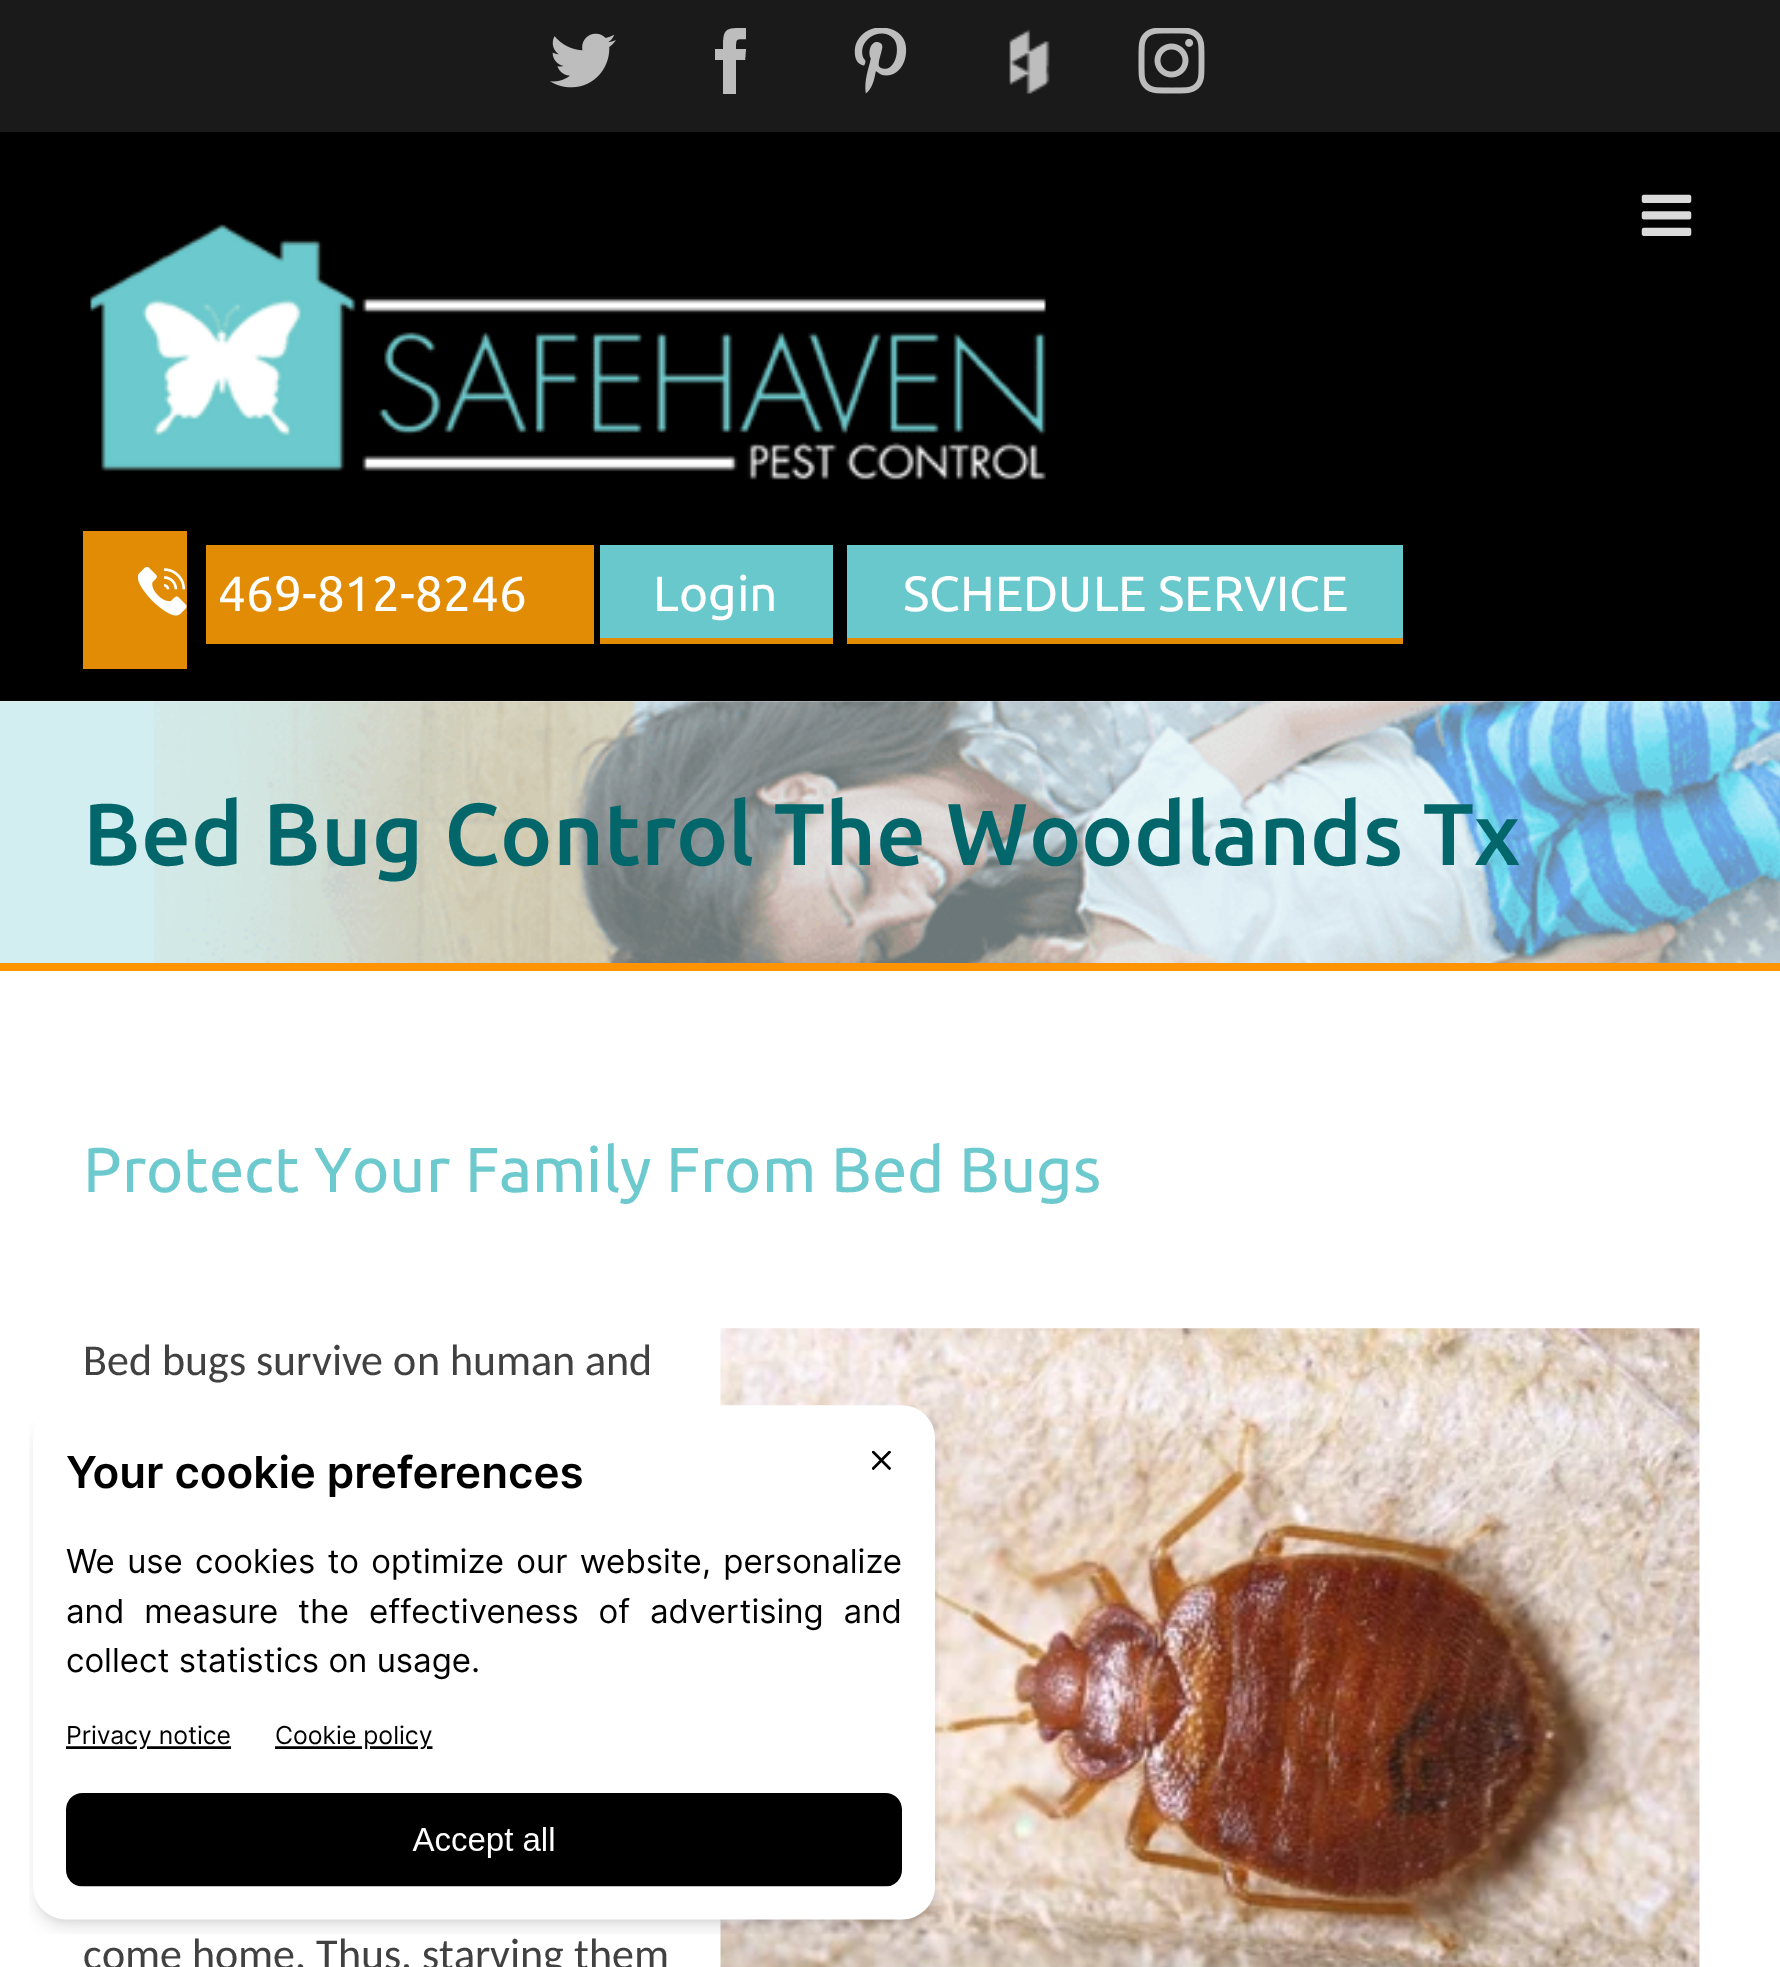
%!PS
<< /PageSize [1780 1967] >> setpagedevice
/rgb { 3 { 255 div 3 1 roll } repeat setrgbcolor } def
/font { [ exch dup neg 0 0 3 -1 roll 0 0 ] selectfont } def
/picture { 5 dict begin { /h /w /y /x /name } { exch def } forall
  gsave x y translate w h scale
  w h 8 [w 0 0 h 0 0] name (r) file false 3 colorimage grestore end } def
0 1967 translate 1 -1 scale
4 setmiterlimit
255 255 255 rgb
0 0 1780 1967 rectfill
26 26 26 rgb
0 0 1780 132 rectfill
(img/1.rgb) 550 33 66 55 picture
190 189 189 rgb
736 94 moveto 723 94 lineto 723 60 lineto 715 60 lineto 715 49 lineto 723 49 lineto 723 28 725 28 746 28 curveto 746 39 lineto 735 39 736 39 736 49 curveto 746 49 lineto 745 60 lineto 736 60 lineto closepath fill
(img/2.rgb) 854 28 53 66 picture
(img/3.rgb) 1009 29 41 65 picture
(img/4.rgb) 1138 28 67 66 picture
0 0 0 rgb
0 132 1780 569 rectfill
(img/5.rgb) 1641 194 51 42 picture
(img/6.rgb) 90 224 956 256 picture
226 140 5 rgb
83 531 104 138 rectfill
206 545 388 99 rectfill
(img/7.rgb) 138 567 49 49 picture
[
  [600 545 233 93 105 200 204]
  [600 638 233 6 226 140 5]
  [847 545 556 93 105 200 204]
  [847 638 556 6 226 140 5]
] { aload pop rgb rectfill } forall
(img/8.rgb) 0 701 1780 262 picture
255 148 0 rgb
0 963 1780 8 rectfill
(img/9.rgb) 720 1328 980 639 picture
(img/10.rgb) 29 1405 910 529 picture
/Ubuntu-Regular 49.5 font
255 255 255 rgb
[
  [(469-812-8246) 218 611]
  [(Login) 653 611]
  [(SCHEDULE SERVICE) 903 611]
] { aload pop moveto show } forall
/Ubuntu-Medium 87.75 font
3 102 106 rgb
83 865 moveto (Bed Bug Control) show
774 865 moveto (The Woodlands Tx) show
/Ubuntu-Regular 63.4 font
108 201 205 rgb
83 1192 moveto (Protect Your Family From Bed Bugs) show
/Carlito-Regular 44 font
65 65 65 rgb
83 1375 moveto (Bed bugs survive on human and) show
83 1969 moveto (come home. Thus, starving them) show
showpage
